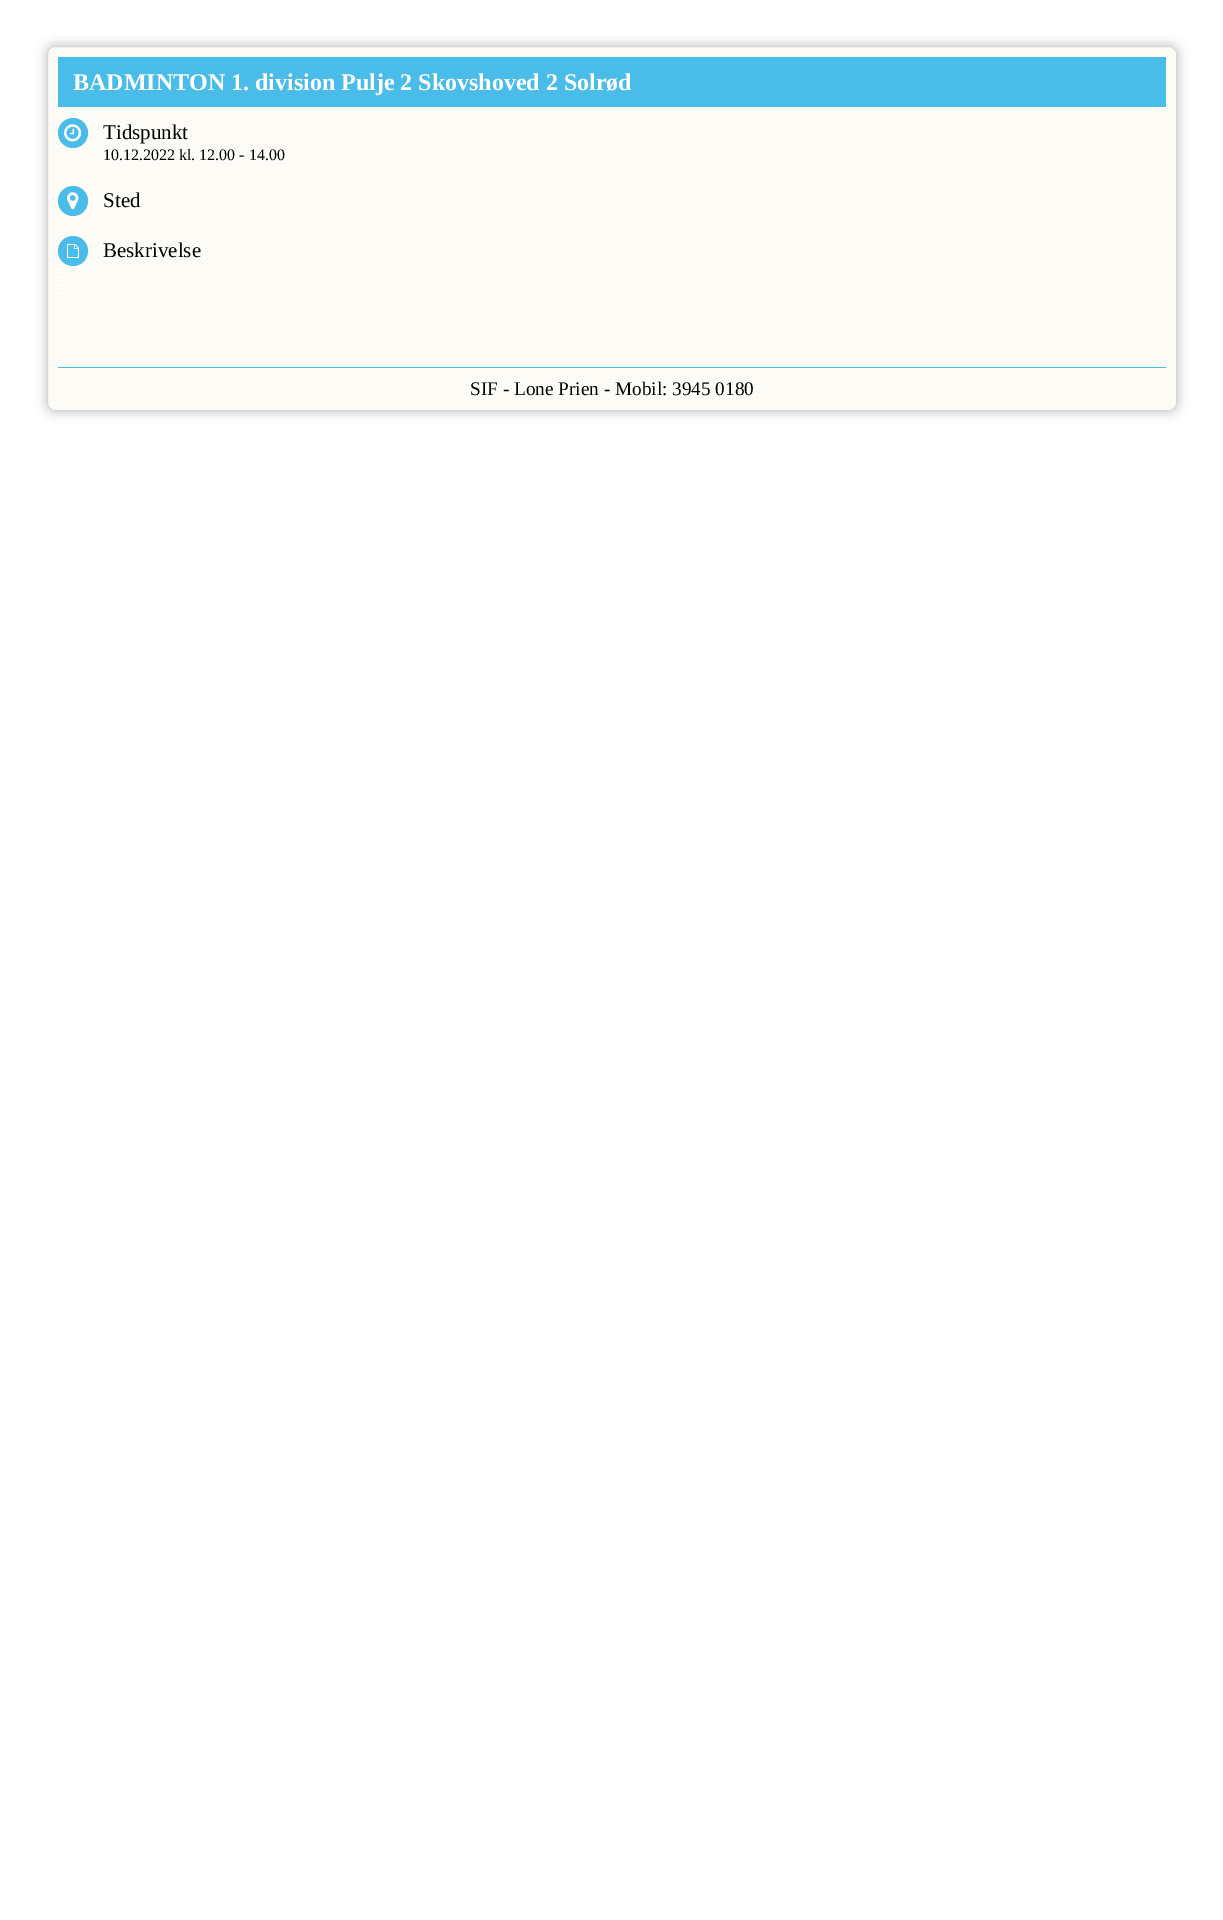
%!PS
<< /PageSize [1223 1920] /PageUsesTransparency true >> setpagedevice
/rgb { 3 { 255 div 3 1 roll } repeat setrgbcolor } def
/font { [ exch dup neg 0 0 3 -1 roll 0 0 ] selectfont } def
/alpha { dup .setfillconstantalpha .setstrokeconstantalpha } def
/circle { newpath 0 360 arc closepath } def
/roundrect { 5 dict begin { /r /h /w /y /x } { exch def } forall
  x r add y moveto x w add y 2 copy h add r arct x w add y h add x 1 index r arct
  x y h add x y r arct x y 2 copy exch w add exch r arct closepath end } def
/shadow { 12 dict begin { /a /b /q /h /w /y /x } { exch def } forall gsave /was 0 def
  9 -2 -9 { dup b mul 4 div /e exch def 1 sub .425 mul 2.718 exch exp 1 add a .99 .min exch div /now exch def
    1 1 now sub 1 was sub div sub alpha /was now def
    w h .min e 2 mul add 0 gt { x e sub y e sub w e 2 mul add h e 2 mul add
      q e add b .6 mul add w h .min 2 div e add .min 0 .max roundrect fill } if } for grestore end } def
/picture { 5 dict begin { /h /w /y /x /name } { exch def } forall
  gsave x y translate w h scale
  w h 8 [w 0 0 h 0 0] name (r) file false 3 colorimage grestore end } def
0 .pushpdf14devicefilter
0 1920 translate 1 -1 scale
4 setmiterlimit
255 255 255 rgb
0 0 1223 1920 rectfill
0 0 0 rgb
45 44 1134 369 10 5 0.2 shadow
(img/1.rgb) 47 46 1130 365 picture
214 214 214 rgb
47.5 46.5 1129 364 7.5 roundrect stroke
74 188 234 rgb
58 57 1108 50 rectfill
73 133 15 circle fill
(img/2.rgb) 64 124 18 18 picture
73 201 15 circle fill
(img/3.rgb) 67 192 12 18 picture
(img/4.rgb) 58 236 1108 60 picture
73 251 15 circle fill
(img/5.rgb) 67 244 12 14 picture
58 367 1108 1 rectfill
/LiberationSerif-Bold 24 font
255 255 255 rgb
73 90 moveto (BADMINTON 1. division Pulje 2 Skovshoved 2 Solrød) show
/LiberationSerif-Regular 21 font
0 0 0 rgb
103 139 moveto (Tidspunkt) show
/LiberationSerif-Regular 16 font
103 160 moveto (10.12.2022 kl. 12.00 - 14.00) show
/LiberationSerif-Regular 21 font
103 207 moveto (Sted) show
103 257 moveto (Beskrivelse) show
/LiberationSerif-Regular 19.25 font
470 395 moveto (SIF - Lone Prien - Mobil: 3945 0180) show
.poppdf14devicefilter showpage
